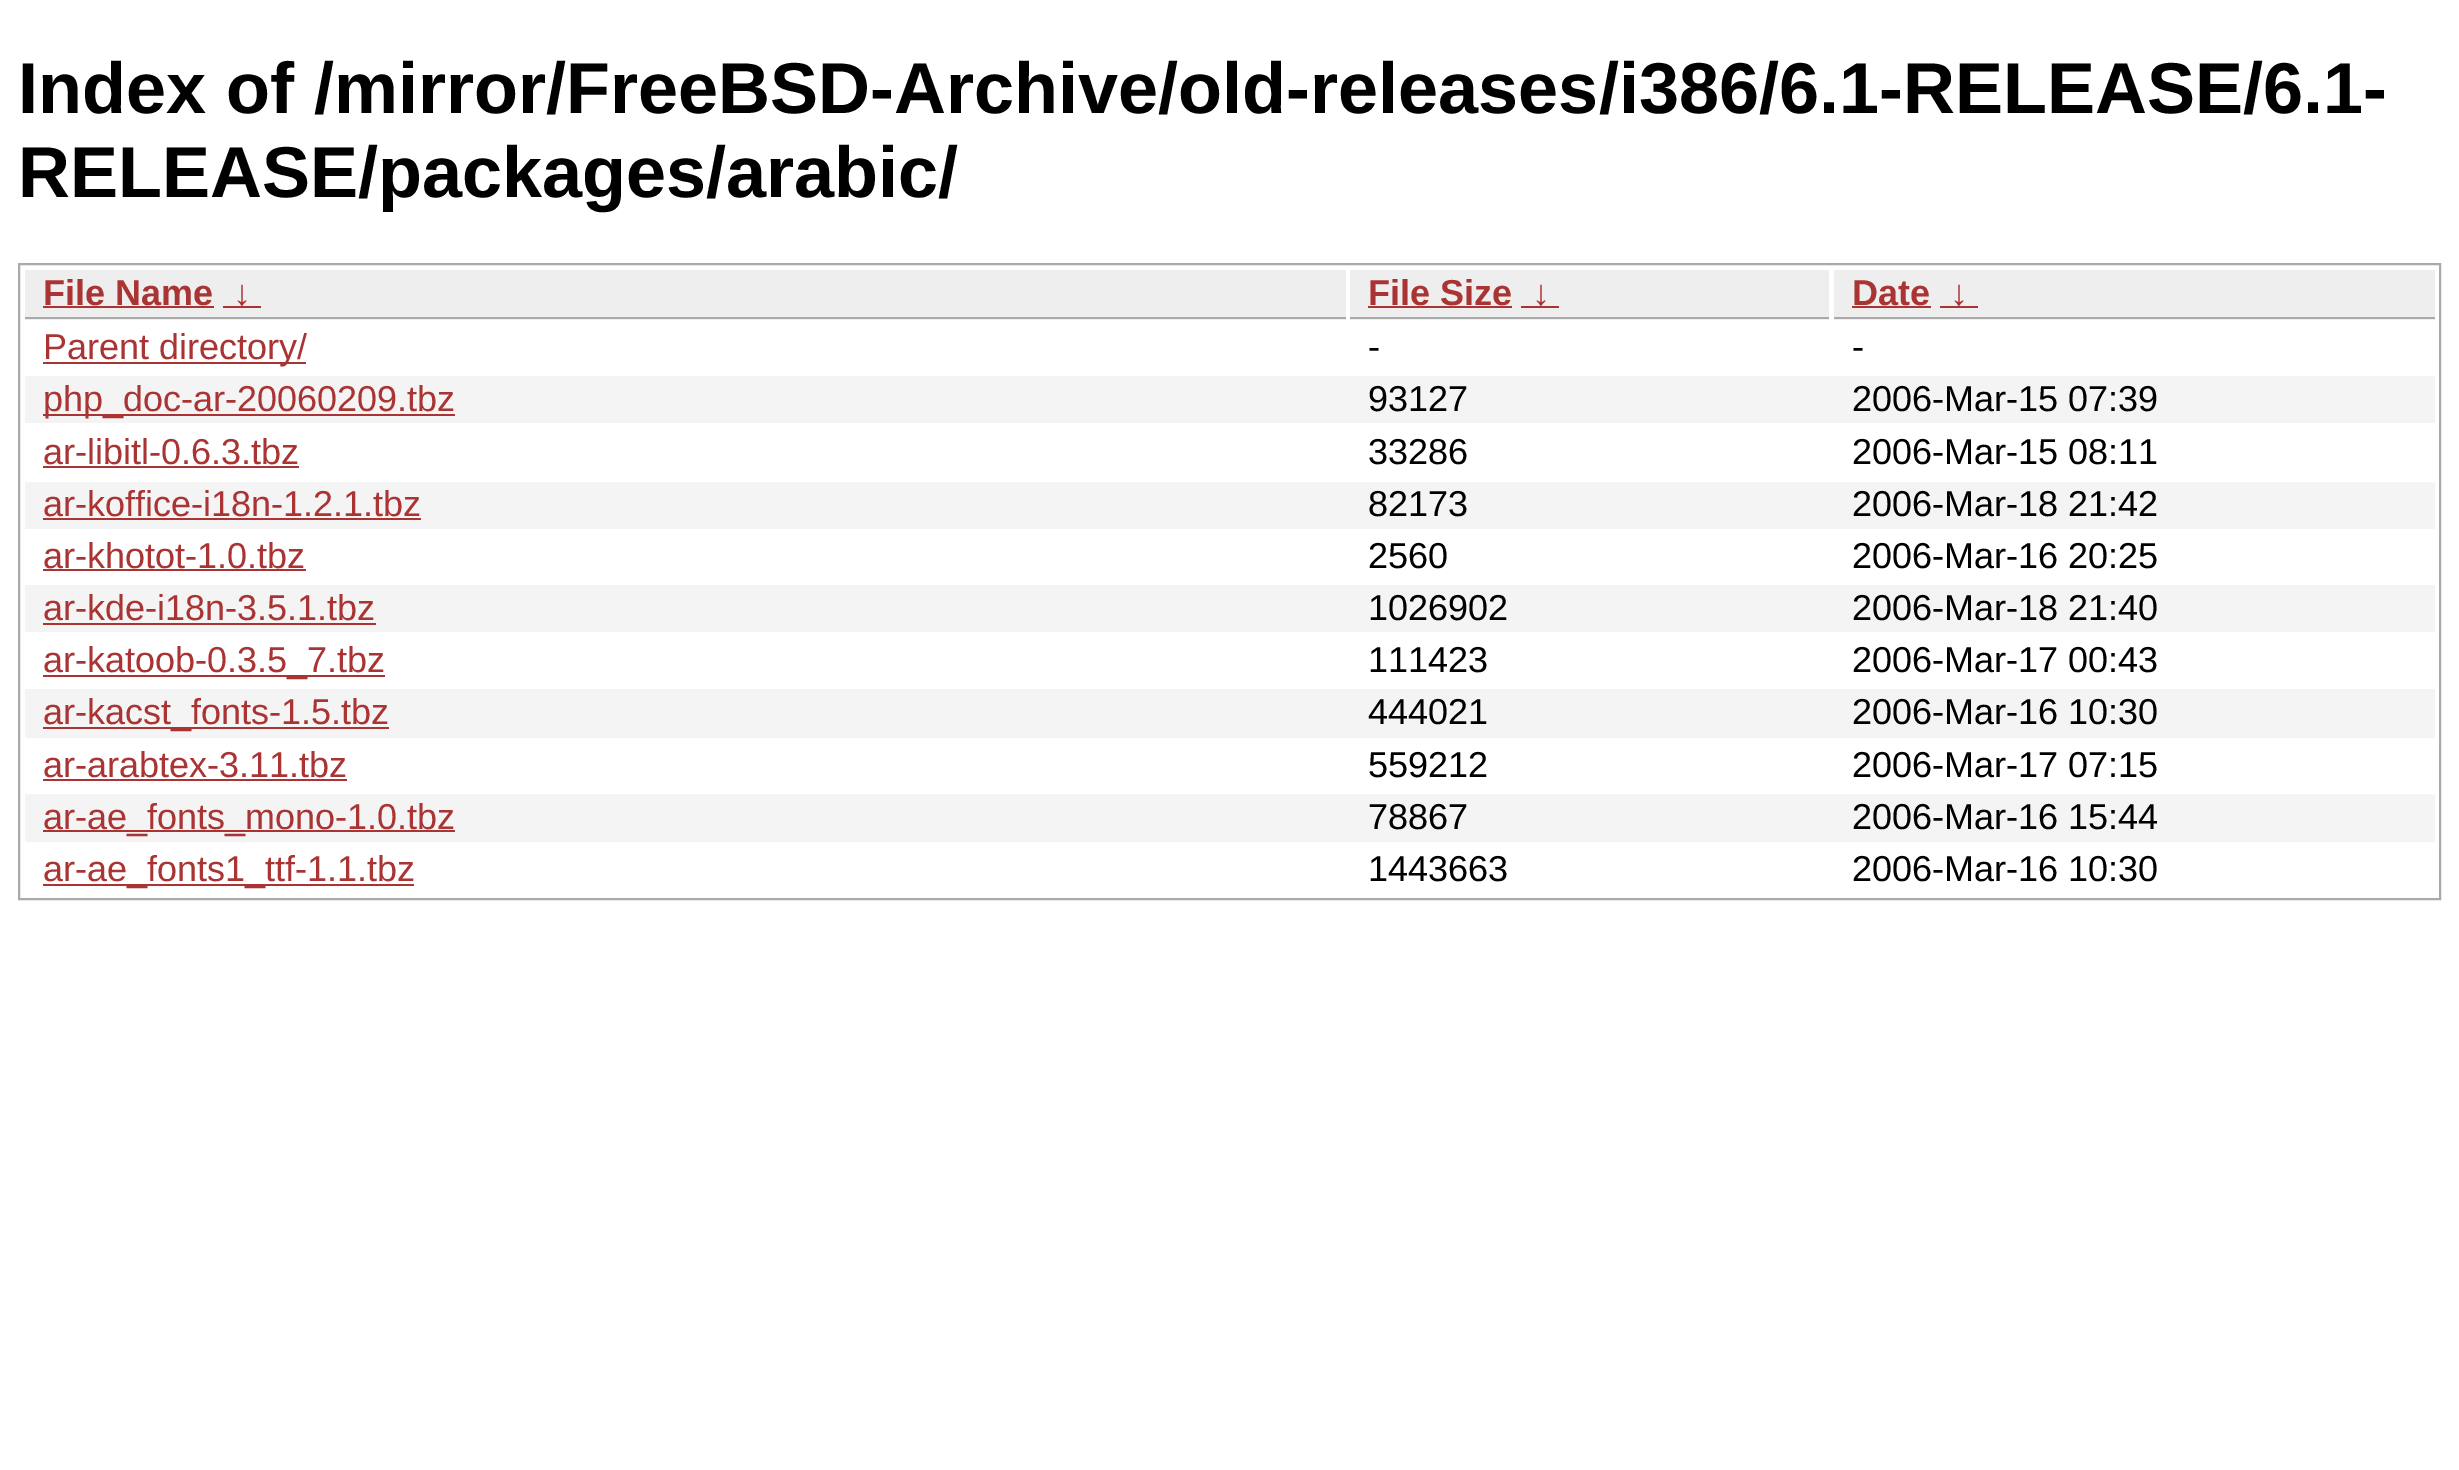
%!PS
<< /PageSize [2459 1470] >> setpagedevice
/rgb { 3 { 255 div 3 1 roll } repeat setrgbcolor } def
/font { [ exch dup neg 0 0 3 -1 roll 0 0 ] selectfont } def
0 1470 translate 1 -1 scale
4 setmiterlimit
255 255 255 rgb
0 0 2459 1470 rectfill
170 170 170 rgb
2 setlinewidth
19 264 2421 635 rectstroke
[
  [25 270 1321 50 238 238 238]
  [25 317 1321 2 170 170 170]
  [43 306 171 2 170 51 51]
  [223 306 38 2 170 51 51]
  [1350 270 479 50 238 238 238]
  [1350 317 479 2 170 170 170]
  [1368 306 144 2 170 51 51]
  [1521 306 38 2 170 51 51]
  [1834 270 601 50 238 238 238]
  [1834 317 601 2 170 170 170]
  [1852 306 79 2 170 51 51]
  [1940 306 38 2 170 51 51]
  [43 362 263 2 170 51 51]
  [25 376 2410 47 244 244 244]
  [43 414 412 2 170 51 51]
  [43 466 256 2 170 51 51]
  [25 482 2410 47 244 244 244]
  [43 518 378 2 170 51 51]
  [43 569 263 2 170 51 51]
  [25 585 2410 47 244 244 244]
  [43 623 333 2 170 51 51]
  [43 675 342 2 170 51 51]
  [25 689 2410 49 244 244 244]
  [43 727 346 2 170 51 51]
  [43 779 304 2 170 51 51]
  [25 794 2410 48 244 244 244]
  [43 830 412 2 170 51 51]
  [43 884 371 2 170 51 51]
] { aload pop rgb rectfill } forall
/LiberationSans-Bold 72 font
0 0 0 rgb
18 113 moveto (Index of /mirror/FreeBSD-Archive/old-releases/i386/6.1-RELEASE/6.1-) show
18 197 moveto (RELEASE/packages/arabic/) show
/LiberationSans-Bold 36 font
170 51 51 rgb
[
  [(File Name) 43 305]
  [(↓) 233 305]
  [(File Size) 1368 305]
  [(↓) 1532 305]
  [(Date) 1852 305]
  [(↓) 1950 305]
] { aload pop moveto show } forall
/LiberationSans-Regular 36 font
43 359 moveto (Parent directory/) show
0 0 0 rgb
1368 359 moveto (-) show
1852 359 moveto (-) show
170 51 51 rgb
43 411 moveto (php_doc-ar-20060209.tbz) show
0 0 0 rgb
1368 411 moveto (93127) show
1852 411 moveto (2006-Mar-15 07:39) show
170 51 51 rgb
43 464 moveto (ar-libitl-0.6.3.tbz) show
0 0 0 rgb
1368 464 moveto (33286) show
1852 464 moveto (2006-Mar-15 08:11) show
170 51 51 rgb
43 516 moveto (ar-koffice-i18n-1.2.1.tbz) show
0 0 0 rgb
1368 516 moveto (82173) show
1852 516 moveto (2006-Mar-18 21:42) show
170 51 51 rgb
43 568 moveto (ar-khotot-1.0.tbz) show
0 0 0 rgb
1368 568 moveto (2560) show
1852 568 moveto (2006-Mar-16 20:25) show
170 51 51 rgb
43 620 moveto (ar-kde-i18n-3.5.1.tbz) show
0 0 0 rgb
1368 620 moveto (1026902) show
1852 620 moveto (2006-Mar-18 21:40) show
170 51 51 rgb
43 672 moveto (ar-katoob-0.3.5_7.tbz) show
0 0 0 rgb
1368 672 moveto (111423) show
1852 672 moveto (2006-Mar-17 00:43) show
170 51 51 rgb
43 724 moveto (ar-kacst_fonts-1.5.tbz) show
0 0 0 rgb
1368 724 moveto (444021) show
1852 724 moveto (2006-Mar-16 10:30) show
170 51 51 rgb
43 777 moveto (ar-arabtex-3.11.tbz) show
0 0 0 rgb
1368 777 moveto (559212) show
1852 777 moveto (2006-Mar-17 07:15) show
170 51 51 rgb
43 829 moveto (ar-ae_fonts_mono-1.0.tbz) show
0 0 0 rgb
1368 829 moveto (78867) show
1852 829 moveto (2006-Mar-16 15:44) show
170 51 51 rgb
43 881 moveto (ar-ae_fonts1_ttf-1.1.tbz) show
0 0 0 rgb
1368 881 moveto (1443663) show
1852 881 moveto (2006-Mar-16 10:30) show
showpage
